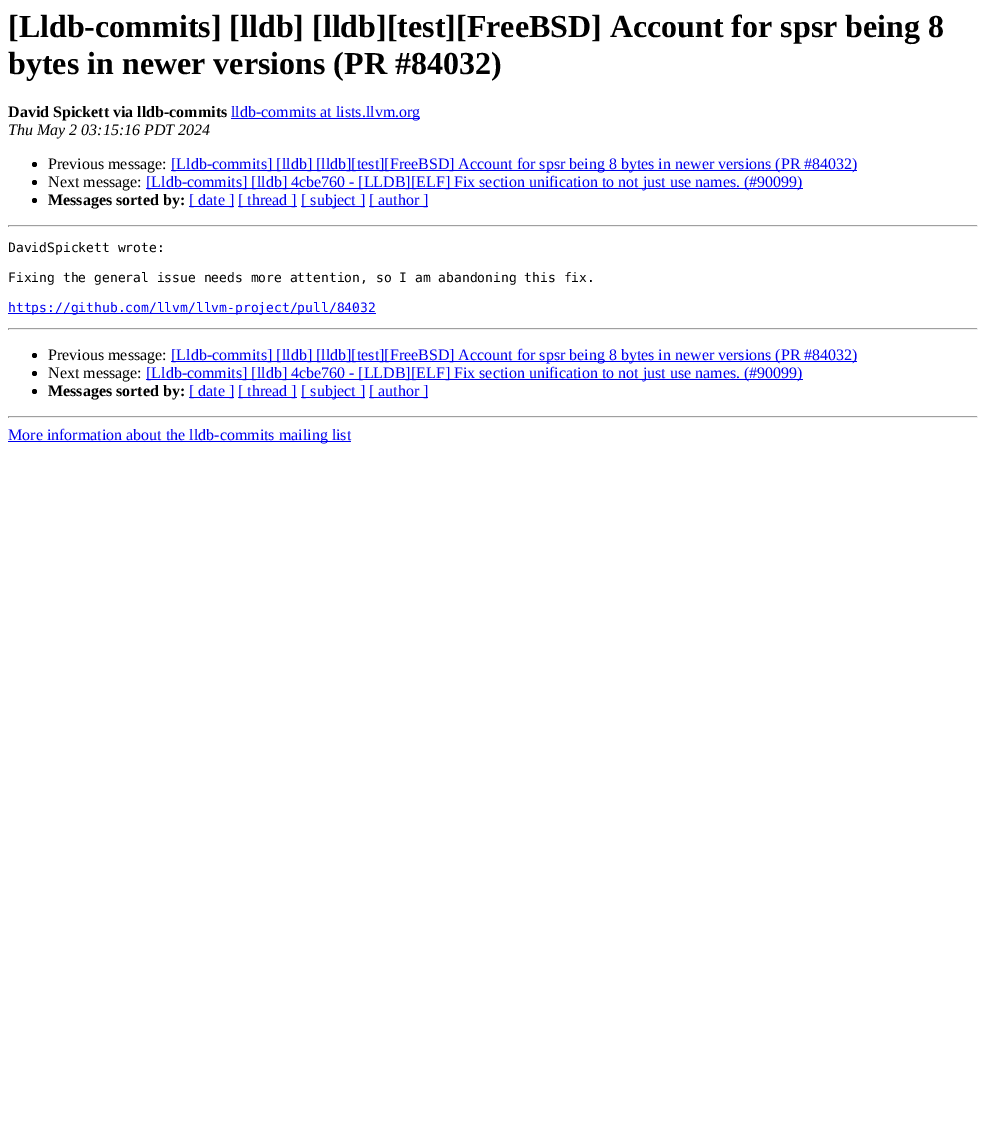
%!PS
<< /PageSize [986 1121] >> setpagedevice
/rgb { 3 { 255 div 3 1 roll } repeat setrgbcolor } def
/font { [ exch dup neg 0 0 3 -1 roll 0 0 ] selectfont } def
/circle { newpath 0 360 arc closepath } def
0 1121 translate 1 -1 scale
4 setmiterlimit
255 255 255 rgb
0 0 986 1121 rectfill
0 0 238 rgb
231 118 189 1 rectfill
0 0 0 rgb
34.5 164.5 2.5 circle fill
0 0 238 rgb
171 170 686 1 rectfill
0 0 0 rgb
34.5 182.5 2.5 circle fill
0 0 238 rgb
146 188 657 1 rectfill
0 0 0 rgb
34.5 200.5 2.5 circle fill
[
  [189 206 45 1 0 0 238]
  [238 206 59 1 0 0 238]
  [301 206 64 1 0 0 238]
  [369 206 59 1 0 0 238]
  [8 225 970 1 159 159 159]
  [977 225 1 2 238 238 238]
  [8 226 970 1 238 238 238]
  [8 225 1 2 159 159 159]
  [8 313 368 1 0 0 238]
  [8 328 970 1 159 159 159]
  [977 328 1 2 238 238 238]
  [8 329 970 1 238 238 238]
  [8 328 1 2 159 159 159]
] { aload pop rgb rectfill } forall
0 0 0 rgb
34.5 355.5 2.5 circle fill
0 0 238 rgb
171 361 686 1 rectfill
0 0 0 rgb
34.5 373.5 2.5 circle fill
0 0 238 rgb
146 379 657 1 rectfill
0 0 0 rgb
34.5 391.5 2.5 circle fill
[
  [189 397 45 1 0 0 238]
  [238 397 59 1 0 0 238]
  [301 397 64 1 0 0 238]
  [369 397 59 1 0 0 238]
  [8 416 970 1 159 159 159]
  [977 416 1 2 238 238 238]
  [8 417 970 1 238 238 238]
  [8 416 1 2 159 159 159]
  [8 441 343 1 0 0 238]
] { aload pop rgb rectfill } forall
/LiberationSerif-Bold 32 font
0 0 0 rgb
8 37 moveto ([Lldb-commits] [lldb] [lldb][test][FreeBSD] Account for spsr being 8) show
8 74 moveto (bytes in newer versions \(PR #84032\)) show
/LiberationSerif-Bold 16 font
8 117 moveto (David Spickett via lldb-commits) show
/LiberationSerif-Regular 16 font
0 0 238 rgb
231 117 moveto (lldb-commits at lists.llvm.org) show
/LiberationSerif-Italic 16 font
0 0 0 rgb
8 135 moveto (Thu May 2 03:15:16 PDT 2024) show
/LiberationSerif-Regular 16 font
48 169 moveto (Previous message:) show
0 0 238 rgb
171 169 moveto ([Lldb-commits] [lldb] [lldb][test][FreeBSD] Account for spsr being 8 bytes in newer versions \(PR #84032\)) show
0 0 0 rgb
48 187 moveto (Next message:) show
0 0 238 rgb
146 187 moveto ([Lldb-commits] [lldb] 4cbe760 - [LLDB][ELF] Fix section unification to not just use names. \(#90099\)) show
/LiberationSerif-Bold 16 font
0 0 0 rgb
48 205 moveto (Messages sorted by:) show
/LiberationSerif-Regular 16 font
0 0 238 rgb
[
  [([ date ]) 189 205]
  [([ thread ]) 238 205]
  [([ subject ]) 301 205]
  [([ author ]) 369 205]
] { aload pop moveto show } forall
/DejaVuSansMono-Regular 13 font
0 0 0 rgb
8 252 moveto (DavidSpickett wrote:) show
8 282 moveto (Fixing the general issue needs more attention, so I am abandoning this fix.) show
0 0 238 rgb
8 312 moveto (https://github.com/llvm/llvm-project/pull/84032) show
/LiberationSerif-Regular 16 font
0 0 0 rgb
48 360 moveto (Previous message:) show
0 0 238 rgb
171 360 moveto ([Lldb-commits] [lldb] [lldb][test][FreeBSD] Account for spsr being 8 bytes in newer versions \(PR #84032\)) show
0 0 0 rgb
48 378 moveto (Next message:) show
0 0 238 rgb
146 378 moveto ([Lldb-commits] [lldb] 4cbe760 - [LLDB][ELF] Fix section unification to not just use names. \(#90099\)) show
/LiberationSerif-Bold 16 font
0 0 0 rgb
48 396 moveto (Messages sorted by:) show
/LiberationSerif-Regular 16 font
0 0 238 rgb
[
  [([ date ]) 189 396]
  [([ thread ]) 238 396]
  [([ subject ]) 301 396]
  [([ author ]) 369 396]
  [(More information about the lldb-commits mailing list) 8 440]
] { aload pop moveto show } forall
showpage
